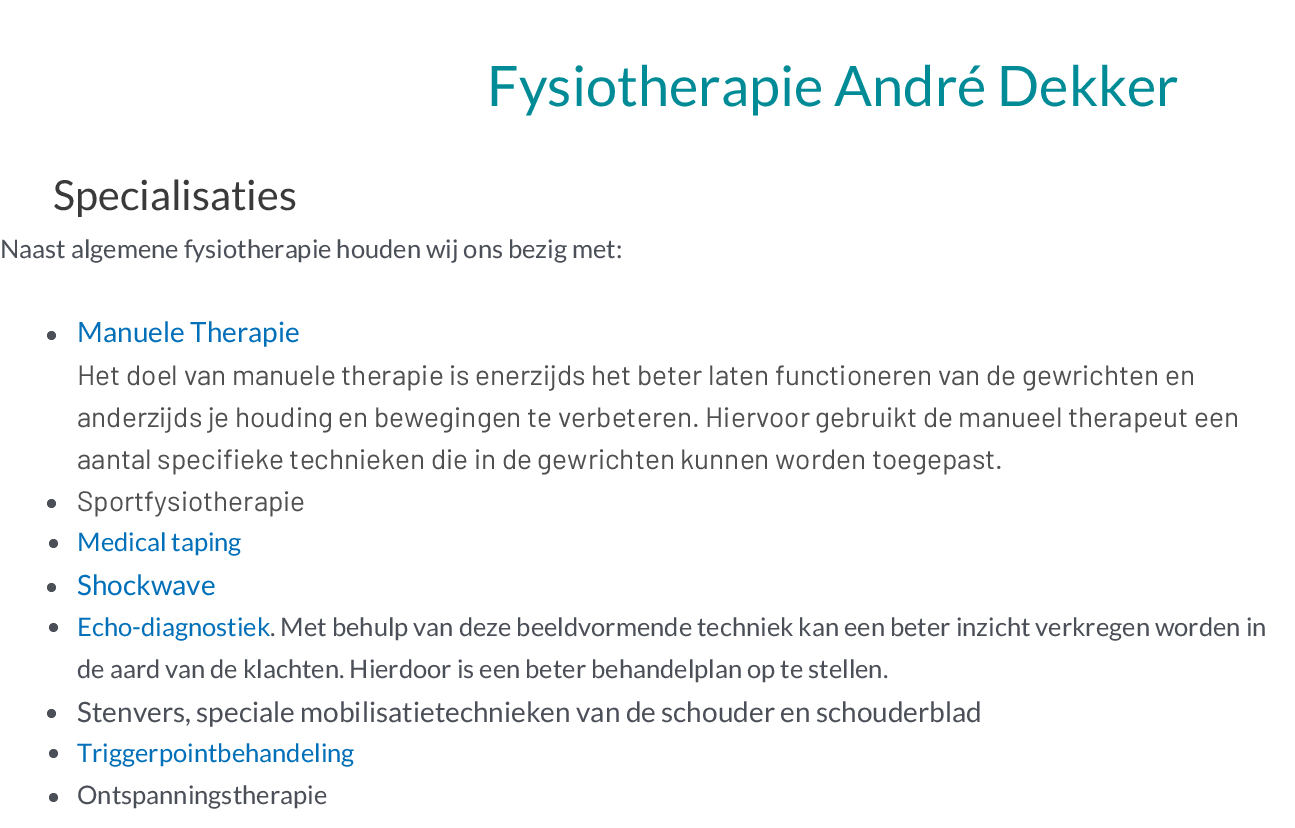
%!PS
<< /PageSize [1295 828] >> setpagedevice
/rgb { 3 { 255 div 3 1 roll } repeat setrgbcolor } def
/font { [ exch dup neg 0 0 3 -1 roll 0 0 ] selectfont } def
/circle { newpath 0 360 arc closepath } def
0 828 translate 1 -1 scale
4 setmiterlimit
255 255 255 rgb
0 0 1295 828 rectfill
75 79 88 rgb
51.5 335.5 4.5 circle fill
51.5 503.5 4.5 circle fill
53.5 543.5 4.5 circle fill
51.5 587.5 4.5 circle fill
53.5 627.5 4.5 circle fill
51.5 713.5 4.5 circle fill
53.5 753.5 4.5 circle fill
53.5 797.5 4.5 circle fill
/Lato-Regular 55.9 font
0 139 151 rgb
487 106 moveto (Fysiotherapie André Dekker) show
/Lato-Regular 41.5 font
58 58 58 rgb
53 210 moveto (Specialisaties) show
/Lato-Regular 25.55 font
75 79 88 rgb
0 258 moveto (Naast algemene fysiotherapie houden wij ons bezig met:) show
/Lato-Regular 28 font
1 112 185 rgb
77 342 moveto (Manuele Therapie) show
/Barlow-Regular 28 font
80 80 80 rgb
[
  [(Het doel van manuele therapie is enerzijds het beter laten functioneren van de gewrichten en) 77 385]
  [(anderzijds je houding en bewegingen te verbeteren. Hiervoor gebruikt de manueel therapeut een) 77 427]
  [(aantal specifieke technieken die in de gewrichten kunnen worden toegepast.) 77 469]
  [(Sportfysiotherapie) 77 511]
] { aload pop moveto show } forall
/Lato-Regular 25.55 font
1 112 185 rgb
77 551 moveto (Medical taping) show
/Lato-Regular 28 font
77 595 moveto (Shockwave) show
/Lato-Regular 25.55 font
77 636 moveto (Echo-diagnostiek) show
75 79 88 rgb
270 636 moveto (. Met behulp van deze beeldvormende techniek kan een beter inzicht verkregen worden in) show
77 678 moveto (de aard van de klachten. Hierdoor is een beter behandelplan op te stellen.) show
/Lato-Regular 28 font
77 722 moveto (Stenvers, speciale mobilisatietechnieken van de schouder en schouderblad) show
/Lato-Regular 25.55 font
1 112 185 rgb
77 762 moveto (Triggerpointbehandeling) show
75 79 88 rgb
77 804 moveto (Ontspanningstherapie) show
showpage
